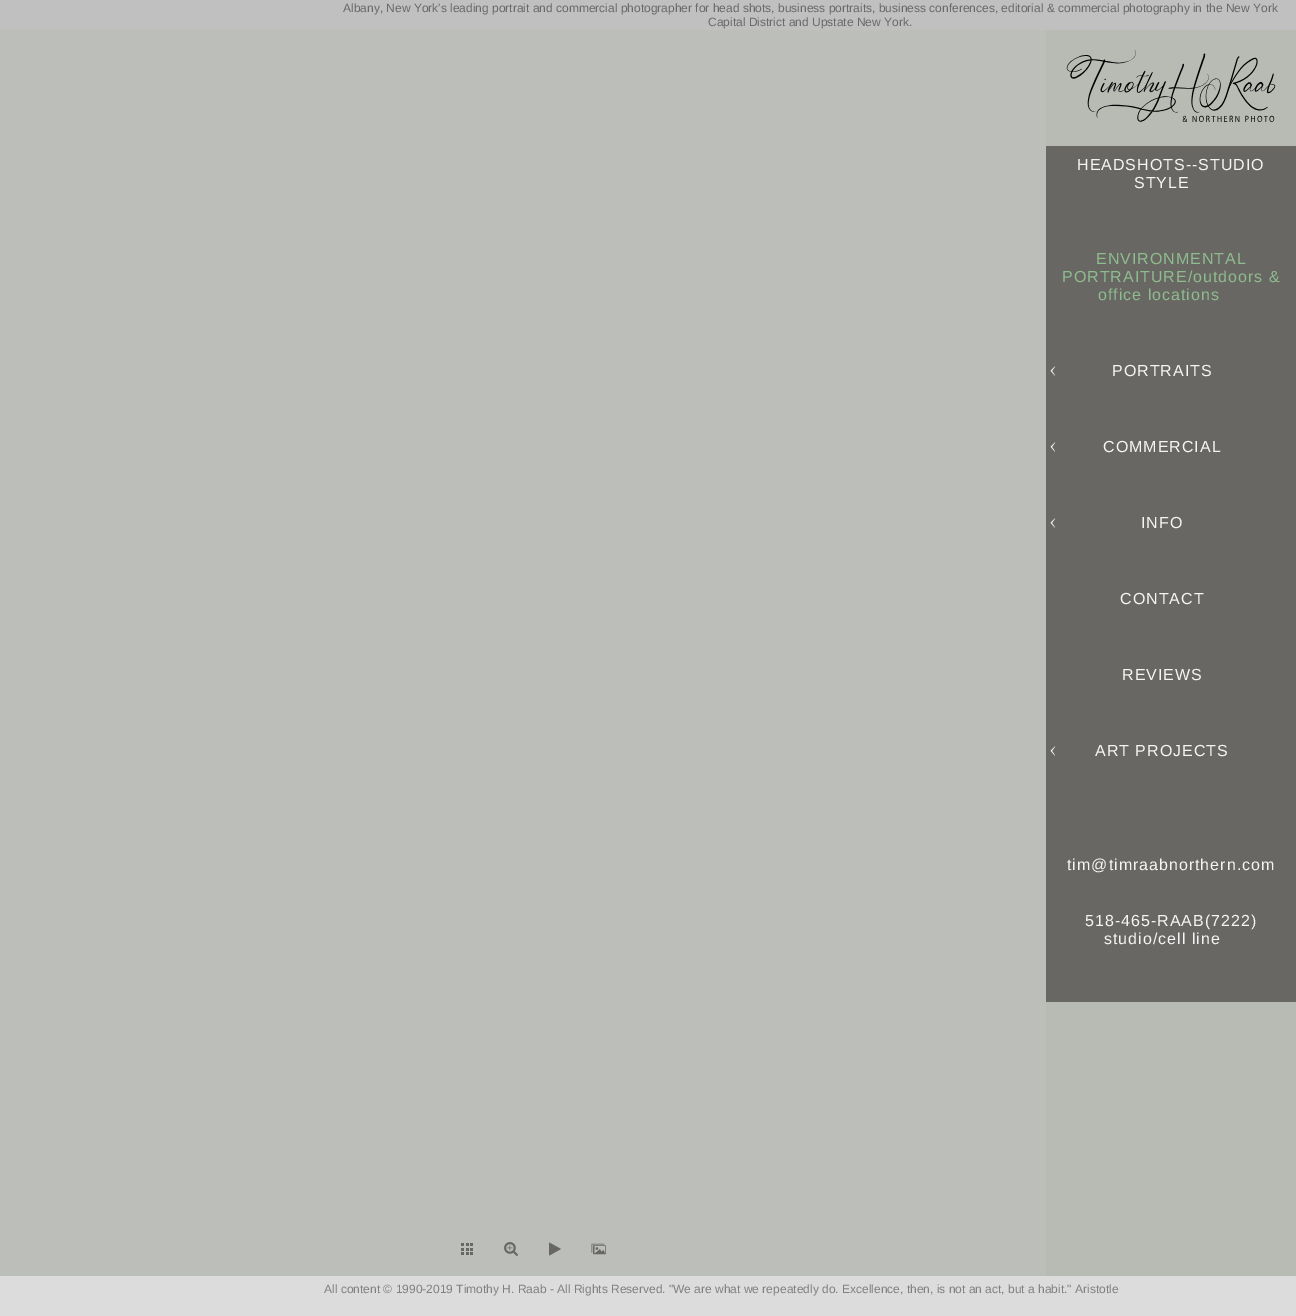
%!PS
<< /PageSize [1296 1316] >> setpagedevice
/rgb { 3 { 255 div 3 1 roll } repeat setrgbcolor } def
/font { [ exch dup neg 0 0 3 -1 roll 0 0 ] selectfont } def
/picture { 5 dict begin { /h /w /y /x /name } { exch def } forall
  gsave x y translate w h scale
  w h 8 [w 0 0 h 0 0] name (r) file false 3 colorimage grestore end } def
0 1316 translate 1 -1 scale
4 setmiterlimit
187 190 185 rgb
0 0 1296 1316 rectfill
192 192 192 rgb
0 0 1296 30 rectfill
184 186 180 rgb
1046 30 250 1246 rectfill
(img/1.rgb) 1066 50 210 72 picture
104 103 99 rgb
1046 146 250 856 rectfill
(img/2.rgb) 1050 366 6 10 picture
(img/2.rgb) 1050 442 6 10 picture
(img/2.rgb) 1050 518 6 10 picture
(img/2.rgb) 1050 746 6 10 picture
(img/3.rgb) 461 1243 12 12 picture
(img/4.rgb) 504 1242 14 14 picture
(img/5.rgb) 549 1242 12 14 picture
(img/6.rgb) 591 1243 15 12 picture
220 220 220 rgb
0 1276 1296 40 rectfill
/LiberationSans-Regular 12 font
105 105 105 rgb
343 12 moveto (Albany, New York's leading portrait and commercial photographer for head shots, business portraits, business conferences, editorial & commercial photography in the New York) show
708 26 moveto (Capital District and Upstate New York.) show
/LiberationSans-Regular 16 font
245 245 245 rgb
1077 170 moveto 1 0 (HEADSHOTS--STUDIO) ashow
1134 188 moveto 1 0 (STYLE) ashow
143 188 143 rgb
1096 264 moveto 1 0 (ENVIRONMENTAL) ashow
1062 282 moveto 1 0 (PORTRAITURE/outdoors &) ashow
1098 300 moveto 1 0 (office locations) ashow
245 245 245 rgb
1112 376 moveto 1 0 (PORTRAITS) ashow
1103 452 moveto 1 0 (COMMERCIAL) ashow
1141 528 moveto 1 0 (INFO) ashow
1120 604 moveto 1 0 (CONTACT) ashow
1122 680 moveto 1 0 (REVIEWS) ashow
1095 756 moveto 1 0 (ART PROJECTS) ashow
1067 870 moveto 1 0 (tim@timraabnorthern.com) ashow
1085 926 moveto 1 0 (518-465-RAAB\(7222\)) ashow
1104 944 moveto 1 0 (studio/cell line) ashow
/LiberationSans-Regular 12 font
128 128 128 rgb
324 1293 moveto (All content © 1990-2019 Timothy H. Raab - All Rights Reserved. "We are what we repeatedly do. Excellence, then, is not an act, but a habit." Aristotle) show
showpage
